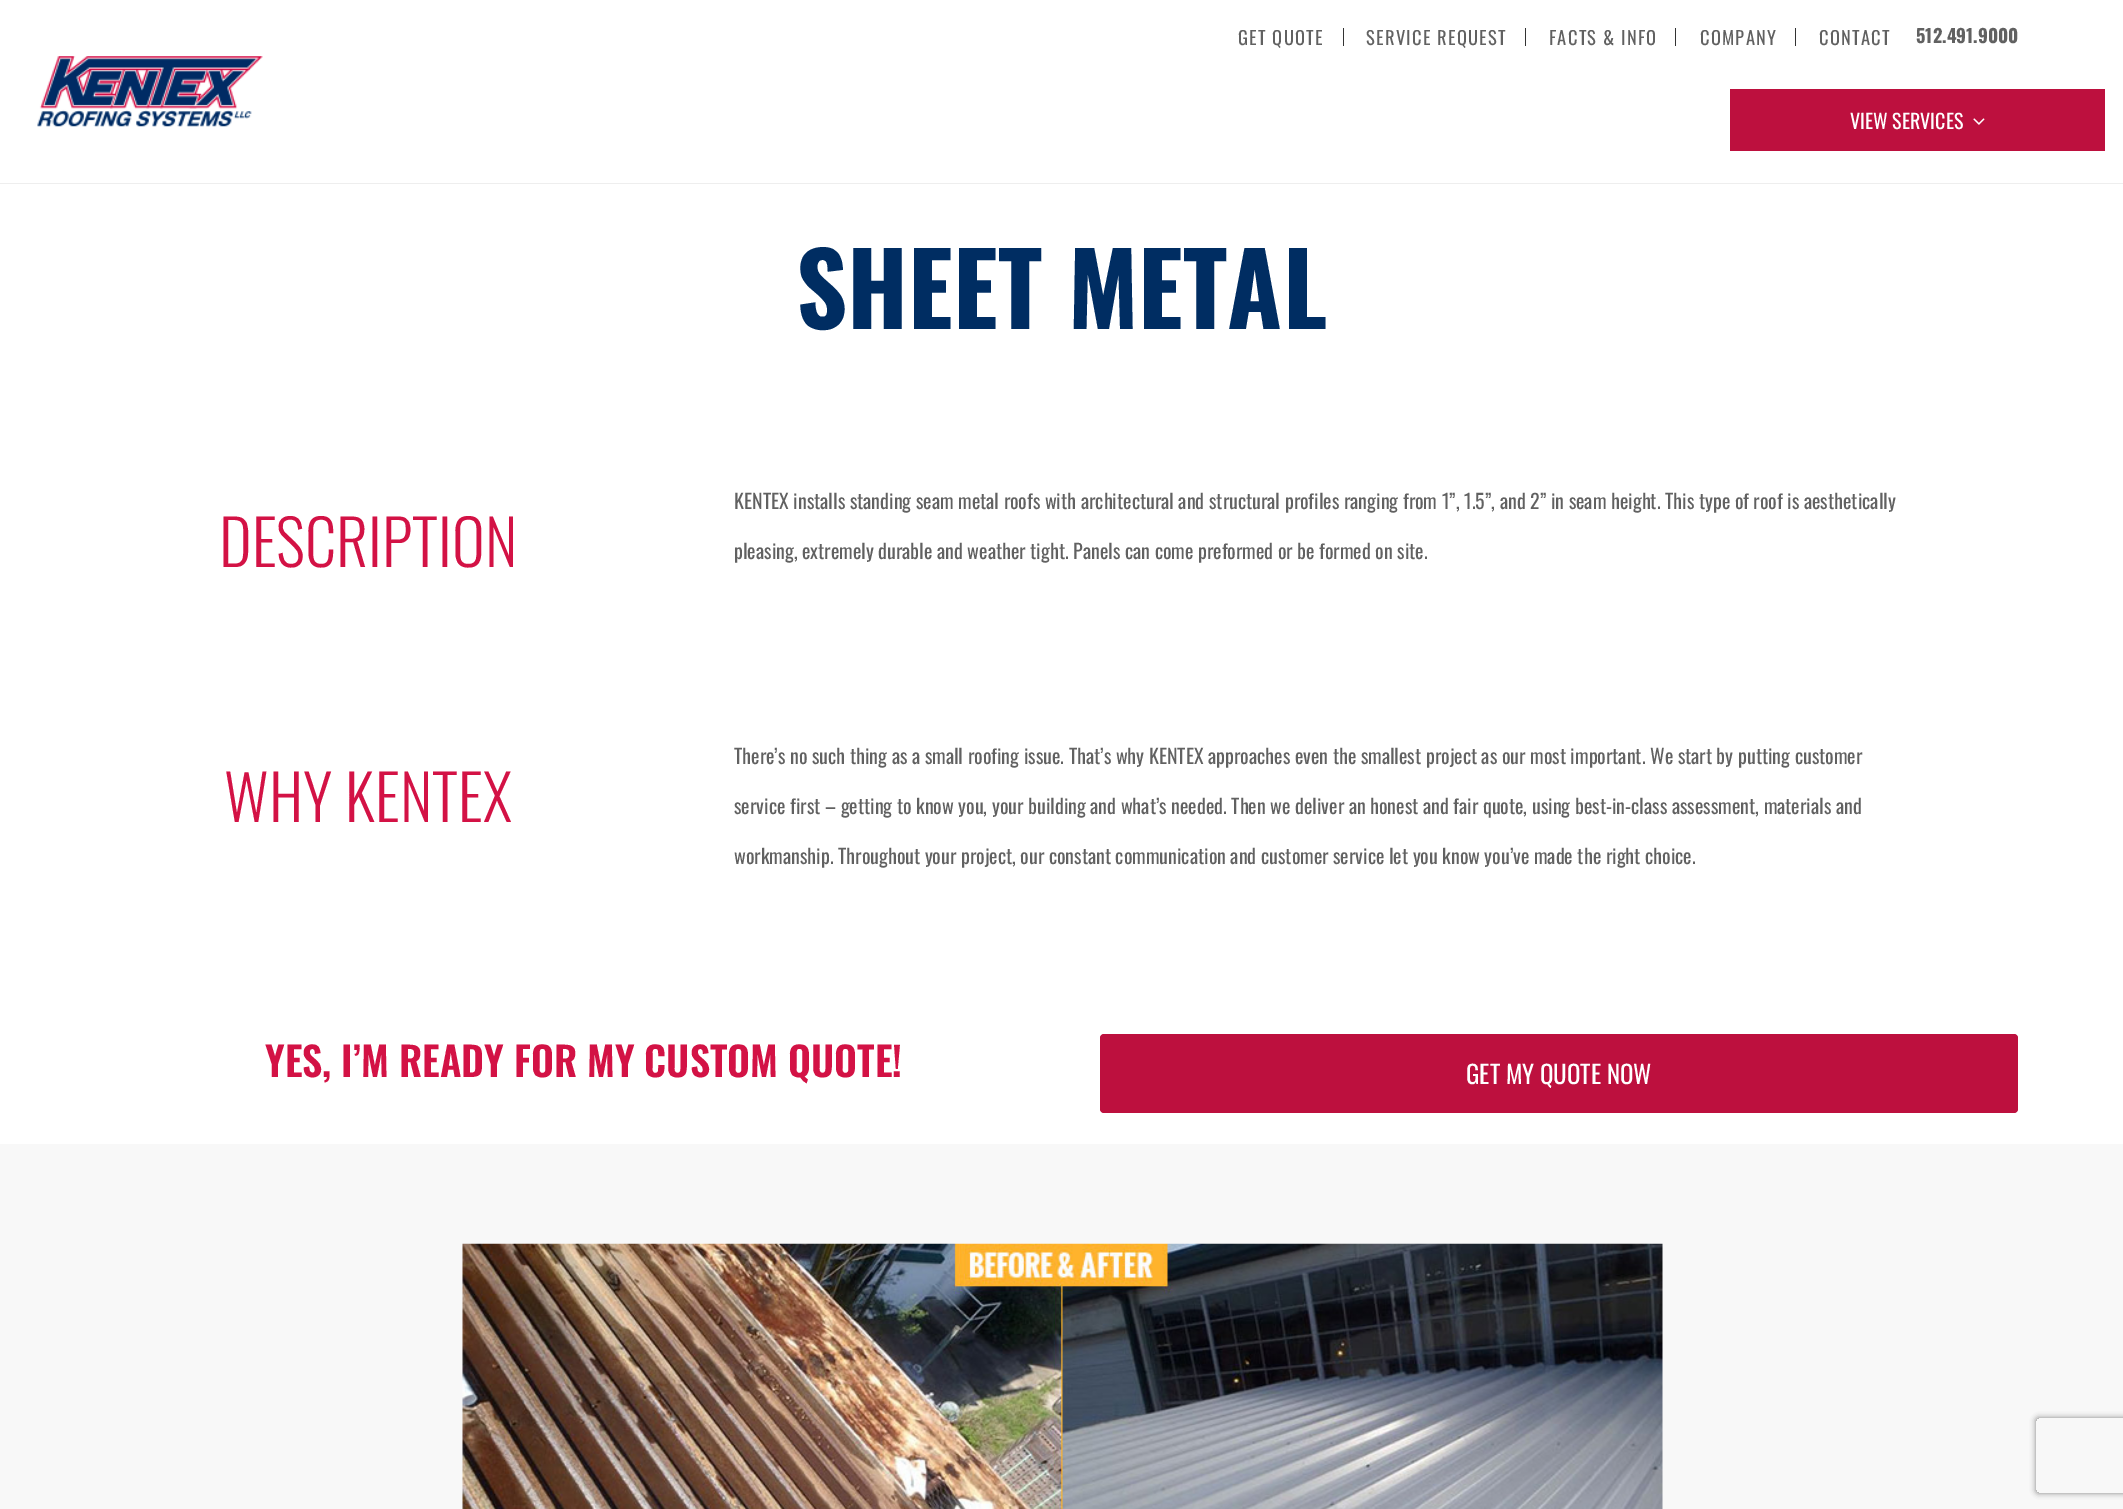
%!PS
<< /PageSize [2123 1509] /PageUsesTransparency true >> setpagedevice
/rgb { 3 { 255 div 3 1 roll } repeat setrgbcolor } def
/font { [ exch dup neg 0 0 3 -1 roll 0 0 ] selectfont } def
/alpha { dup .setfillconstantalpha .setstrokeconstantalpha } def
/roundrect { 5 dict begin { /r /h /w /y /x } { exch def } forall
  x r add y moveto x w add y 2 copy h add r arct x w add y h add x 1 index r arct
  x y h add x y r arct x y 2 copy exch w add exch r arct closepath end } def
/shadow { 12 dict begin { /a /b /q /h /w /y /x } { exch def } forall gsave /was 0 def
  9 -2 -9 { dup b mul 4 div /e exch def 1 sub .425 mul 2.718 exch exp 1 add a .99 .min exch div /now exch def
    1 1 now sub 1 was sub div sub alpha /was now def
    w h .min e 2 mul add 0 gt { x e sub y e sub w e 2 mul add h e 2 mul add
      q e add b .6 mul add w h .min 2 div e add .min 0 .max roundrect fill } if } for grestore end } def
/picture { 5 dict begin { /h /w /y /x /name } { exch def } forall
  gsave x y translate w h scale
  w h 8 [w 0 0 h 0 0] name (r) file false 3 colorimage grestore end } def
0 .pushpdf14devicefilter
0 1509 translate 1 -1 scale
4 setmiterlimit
255 255 255 rgb
0 0 2123 1509 rectfill
[
  [1343 28 1 18 51 51 51]
  [1525 28 1 18 51 51 51]
  [1675 28 1 18 51 51 51]
  [1795 28 1 18 51 51 51]
] { aload pop rgb rectfill } forall
(img/1.rgb) 37 56 226 71 picture
189 16 62 rgb
1730 89 375 62 rectfill
(img/2.rgb) 1973 118 12 7 picture
238 238 238 rgb
0 183 2123 1 rectfill
189 16 62 rgb
1100 1034 918 79 4 roundrect fill
248 248 248 rgb
0 1144 2123 365 rectfill
(img/3.rgb) 462 1243 1201 266 picture
gsave
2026 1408 moveto 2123 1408 lineto 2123 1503 lineto 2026 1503 lineto closepath 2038.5 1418 moveto 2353.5 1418 lineto 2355 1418 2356 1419 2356 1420.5 curveto 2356 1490.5 lineto 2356 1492 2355 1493 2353.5 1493 curveto 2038.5 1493 lineto 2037 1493 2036 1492 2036 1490.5 curveto 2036 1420.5 lineto 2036 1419 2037 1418 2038.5 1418 curveto closepath eoclip newpath
128 128 128 rgb
2036 1418 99 75 2.5 3 1 shadow
grestore
/Oswald-Regular 18.5 font
97 97 97 rgb
1238 45 moveto 1.25 0 (GET QUOTE) ashow
1366 45 moveto 1.25 0 (SERVICE REQUEST) ashow
1549 45 moveto 1.25 0 (FACTS & INFO) ashow
1700 45 moveto 1.25 0 (COMPANY) ashow
1819 45 moveto 1.25 0 (CONTACT) ashow
/Oswald-Bold 18.5 font
1916 43 moveto (512.491.9000) show
/Oswald-Regular 20 font
255 255 255 rgb
1850 129 moveto (VIEW SERVICES) show
/Oswald-Bold 100 font
0 45 98 rgb
796 329 moveto (SHEET METAL) show
/Oswald-Light 62.5 font
211 18 69 rgb
219 567 moveto (DESCRIPTION) show
/Oswald-Regular 20 font
97 97 97 rgb
734 509 moveto (KENTEX installs standing seam metal roofs with architectural and structural profiles ranging from 1”, 1.5”, and 2” in seam height. This type of roof is aesthetically) show
734 559 moveto (pleasing, extremely durable and weather tight. Panels can come preformed or be formed on site.) show
/Oswald-Light 62.5 font
211 18 69 rgb
224 822 moveto (WHY KENTEX) show
/Oswald-Regular 20 font
97 97 97 rgb
[
  [(There’s no such thing as a small roofing issue. That’s why KENTEX approaches even the smallest project as our most important. We start by putting customer) 734 764]
  [(service first – getting to know you, your building and what’s needed. Then we deliver an honest and fair quote, using best-in-class assessment, materials and) 734 814]
  [(workmanship. Throughout your project, our constant communication and customer service let you know you’ve made the right choice.) 734 864]
] { aload pop moveto show } forall
/Oswald-SemiBold 40 font
211 18 69 rgb
265 1077 moveto (YES, I’M READY FOR MY CUSTOM QUOTE!) show
/Oswald-Regular 25 font
255 255 255 rgb
1466 1084 moveto (GET MY QUOTE NOW) show
.poppdf14devicefilter showpage
